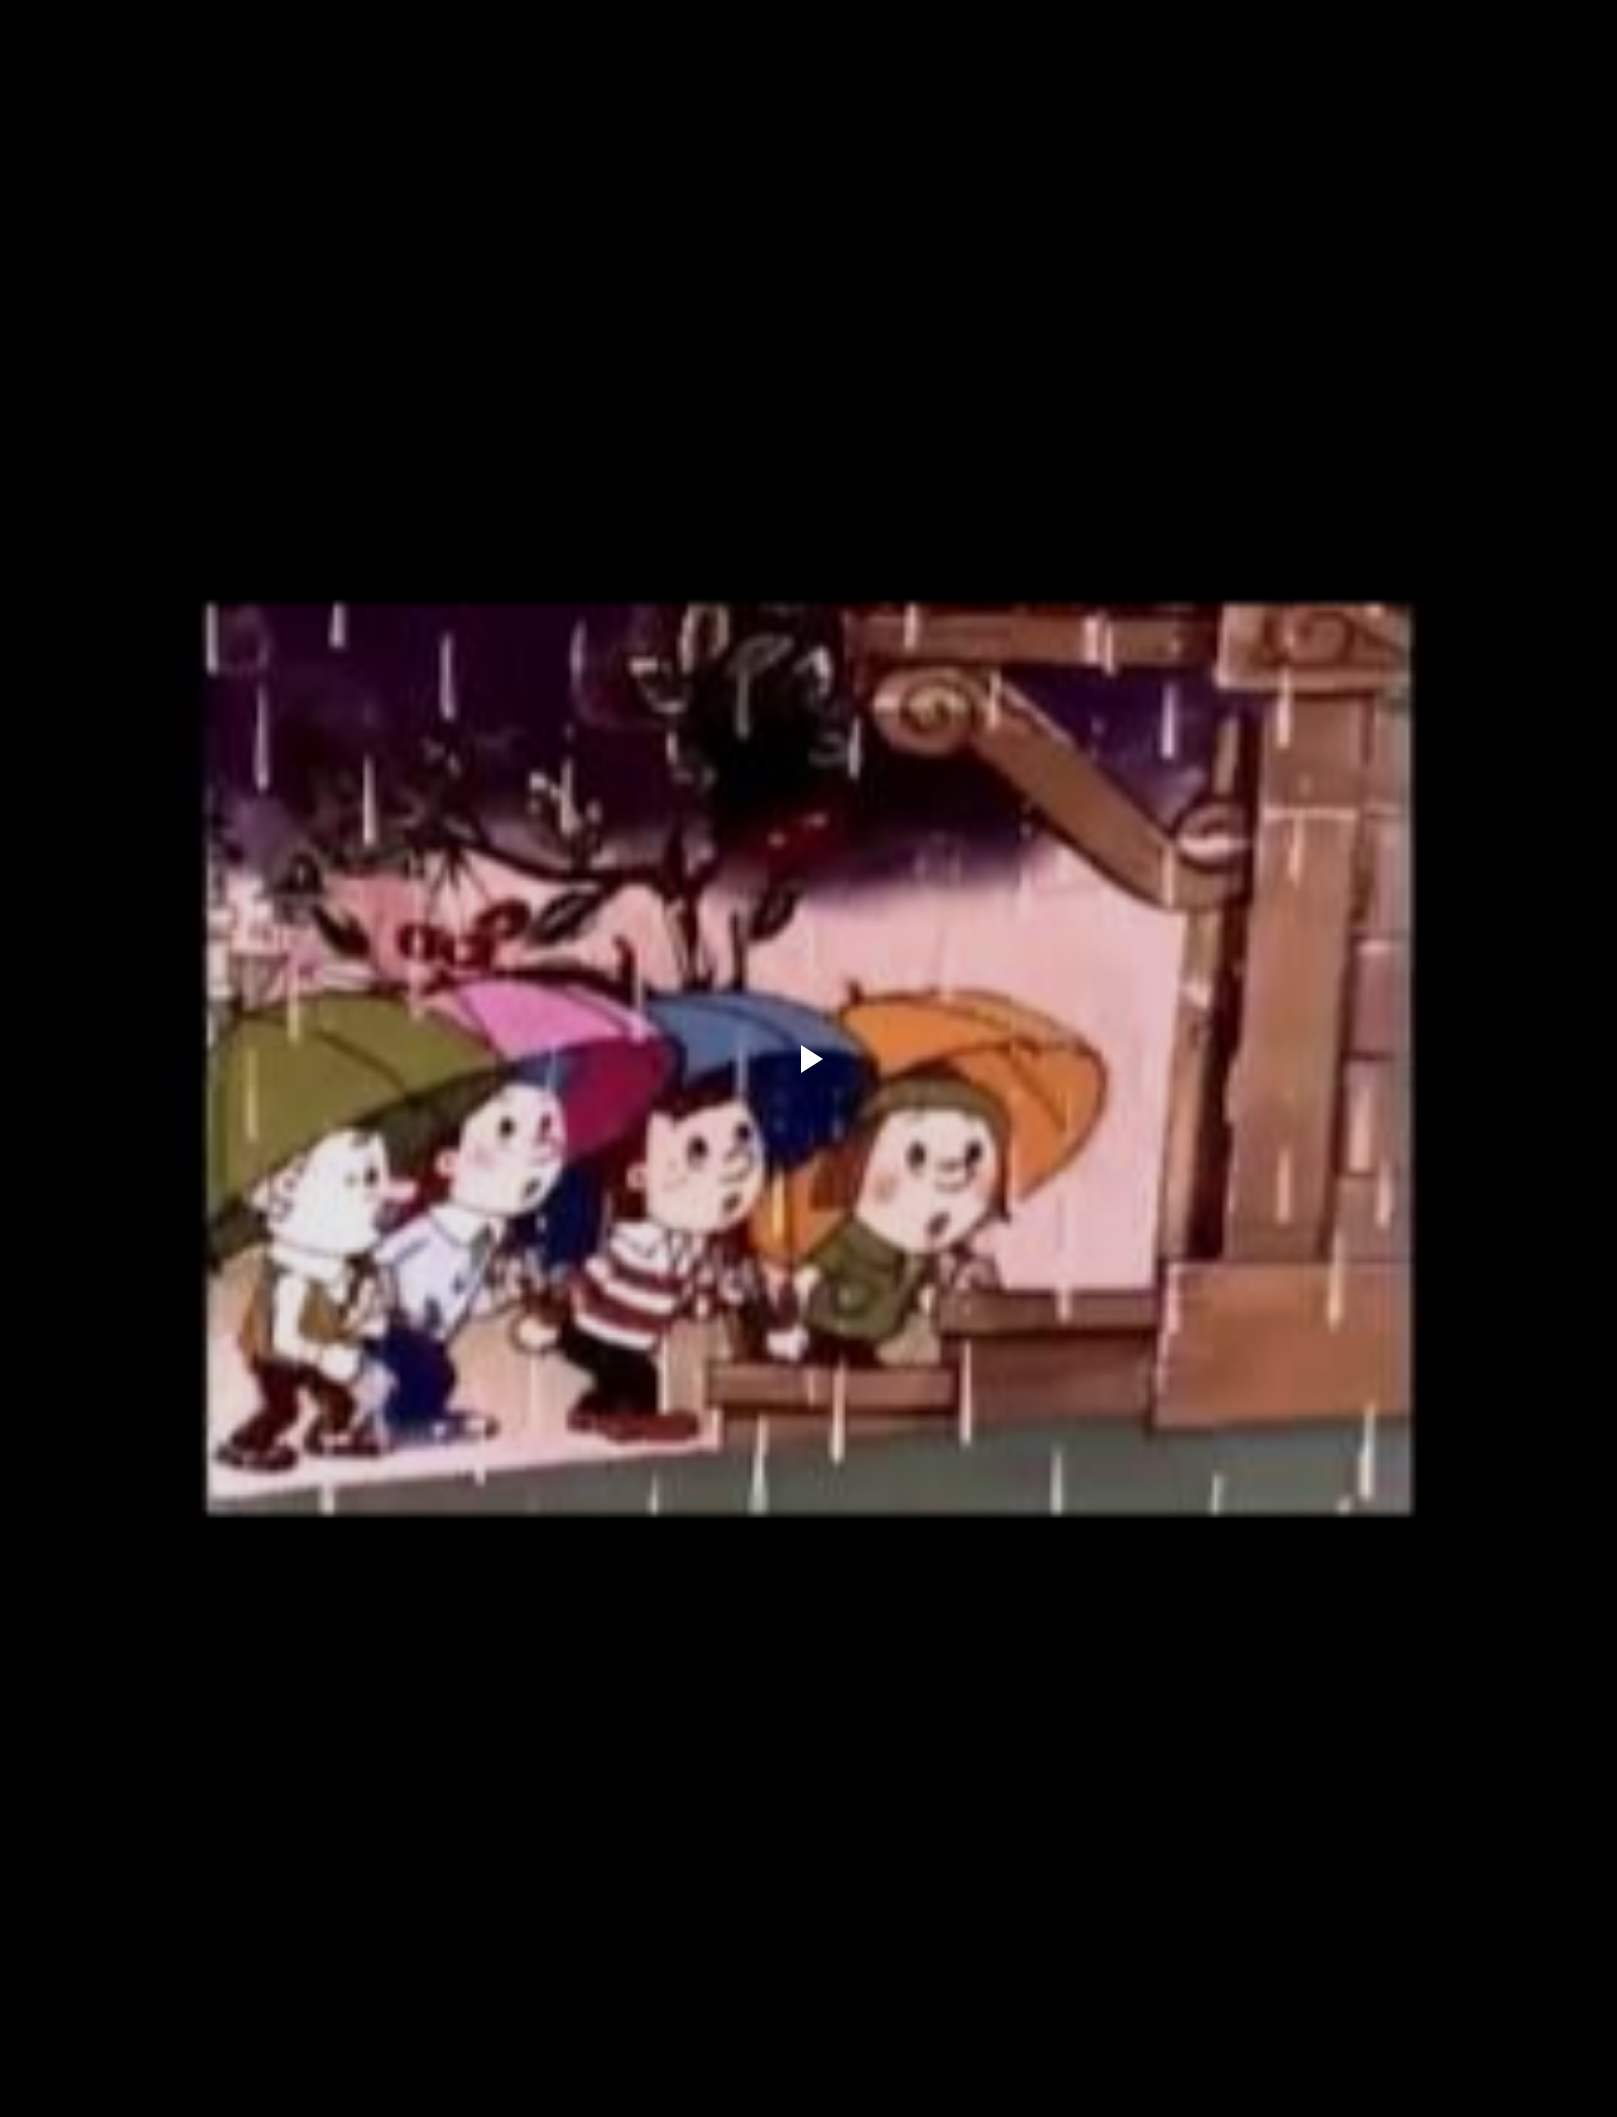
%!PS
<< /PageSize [1617 2117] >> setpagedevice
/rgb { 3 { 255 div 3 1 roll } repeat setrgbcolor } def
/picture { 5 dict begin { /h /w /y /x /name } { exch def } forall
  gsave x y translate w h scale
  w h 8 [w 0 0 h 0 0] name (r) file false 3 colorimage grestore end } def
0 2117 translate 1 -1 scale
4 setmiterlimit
0 0 0 rgb
0 0 1617 2117 rectfill
(img/1.rgb) 169 599 1256 919 picture
(img/2.rgb) 801 1045 22 28 picture
showpage
